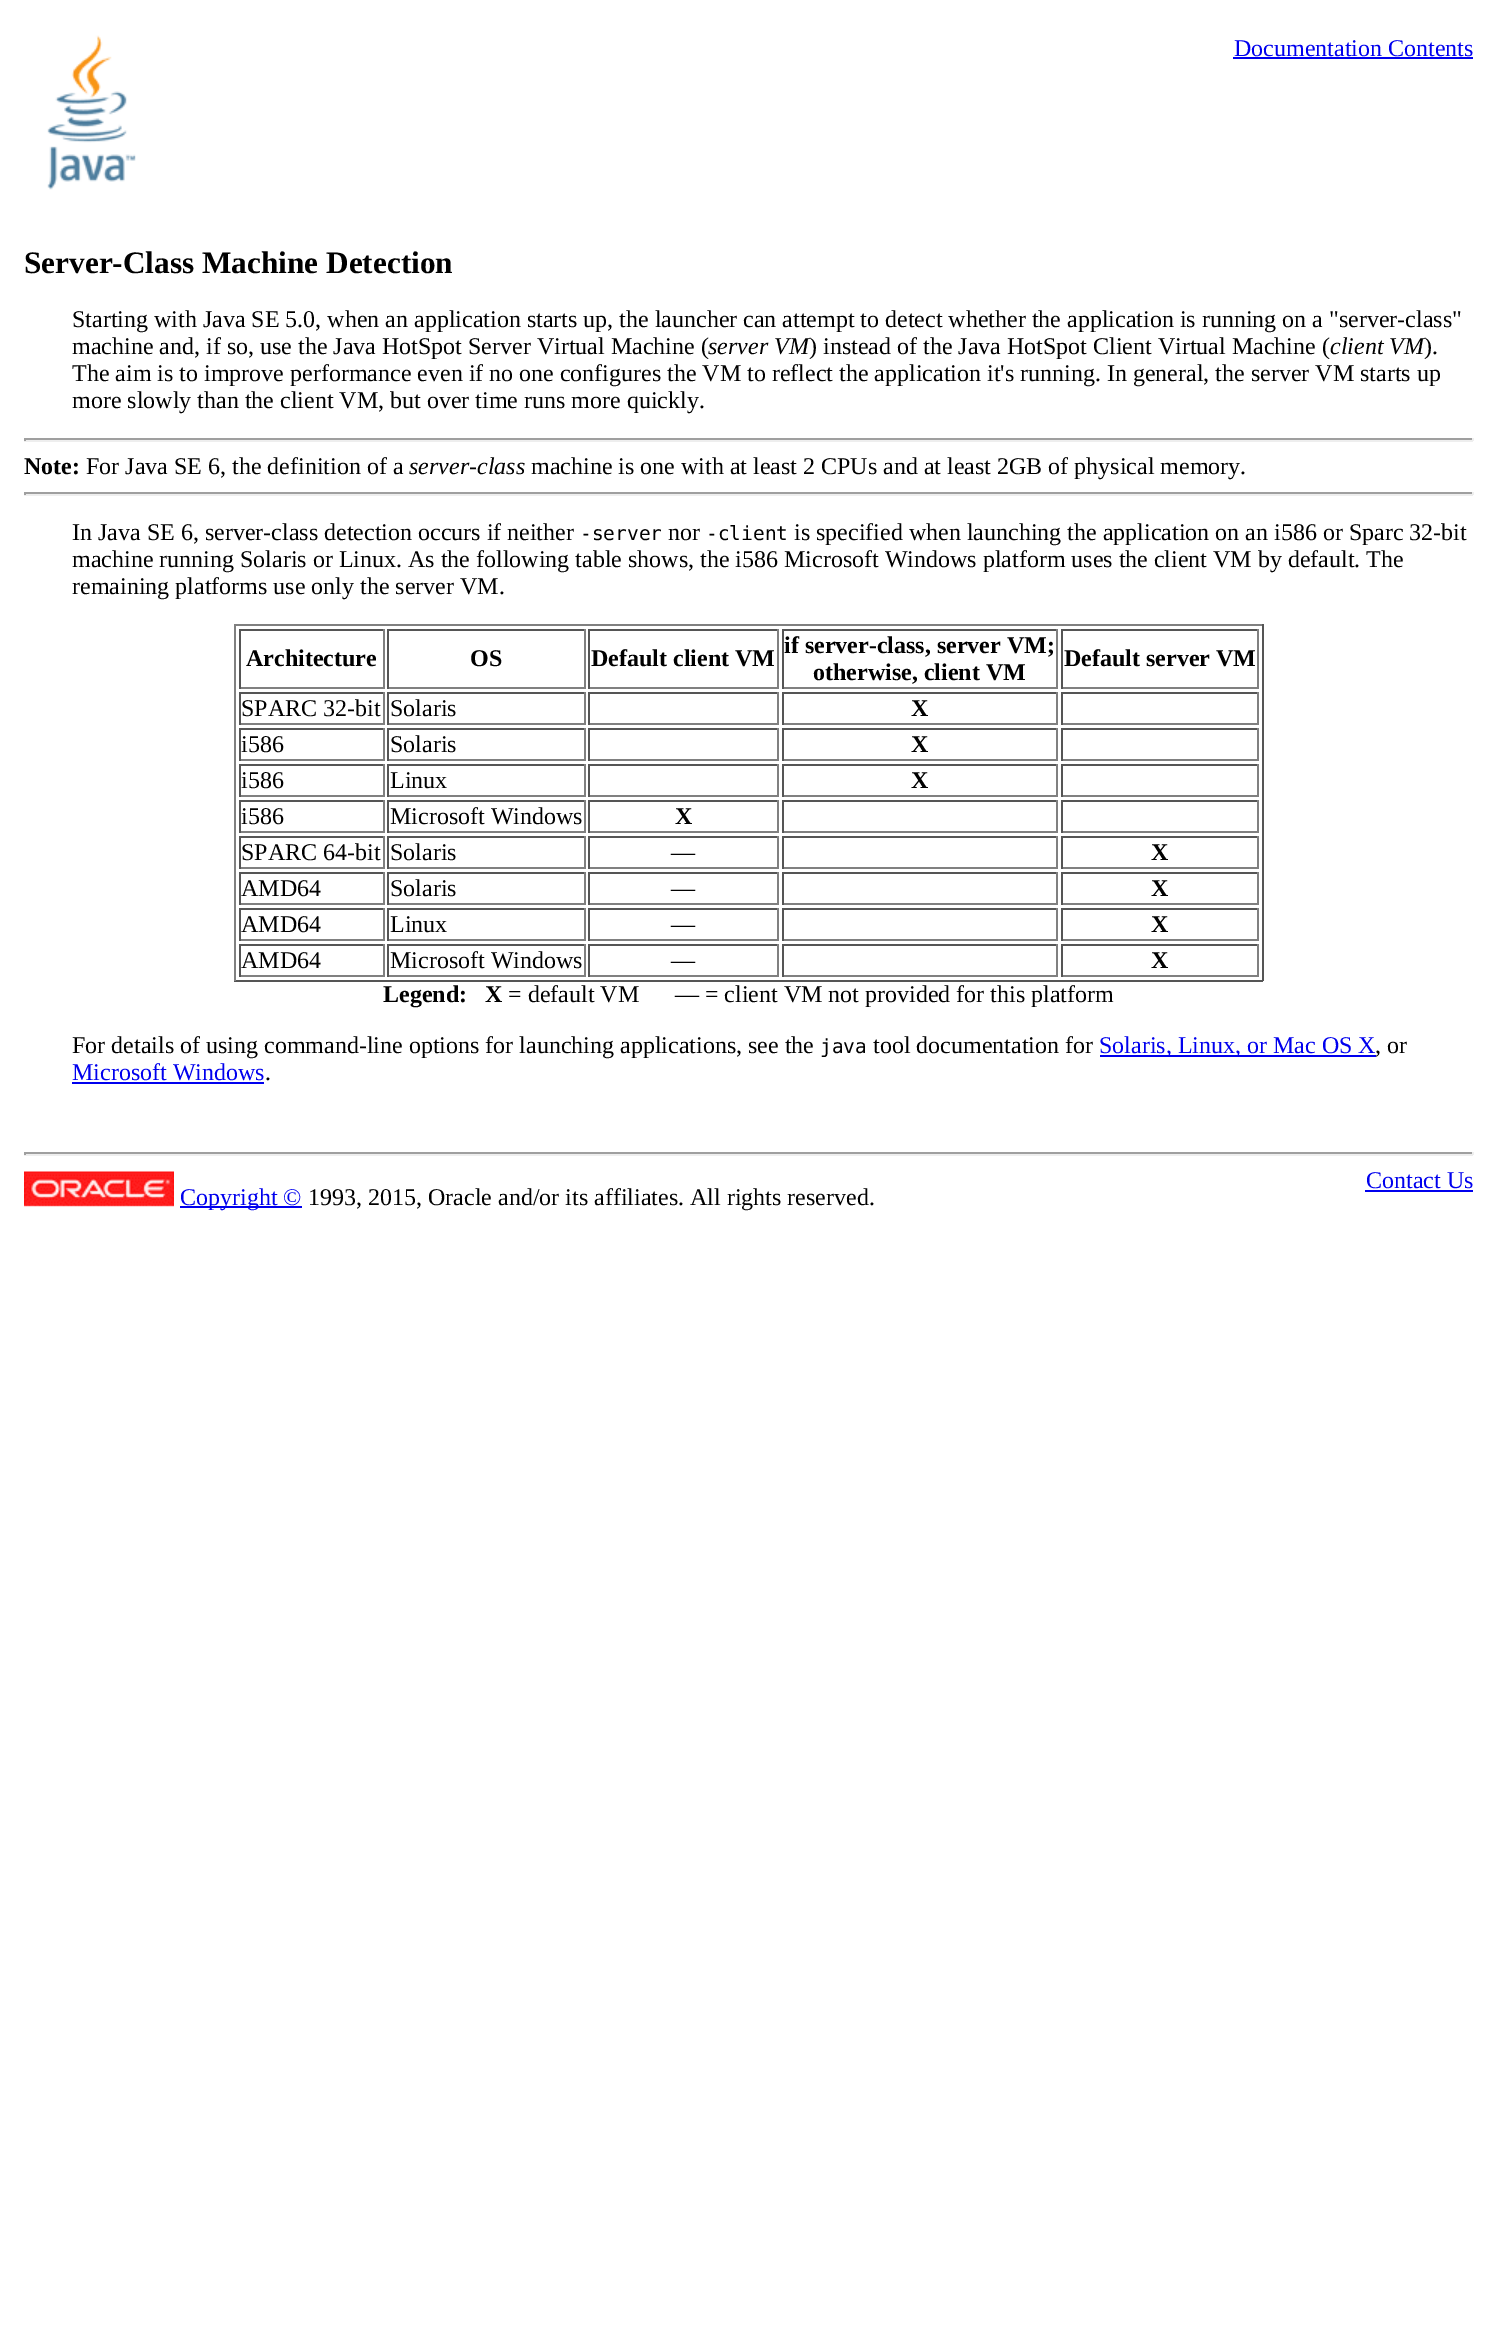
%!PS
<< /PageSize [1496 2338] >> setpagedevice
/rgb { 3 { 255 div 3 1 roll } repeat setrgbcolor } def
/font { [ exch dup neg 0 0 3 -1 roll 0 0 ] selectfont } def
/picture { 5 dict begin { /h /w /y /x /name } { exch def } forall
  gsave x y translate w h scale
  w h 8 [w 0 0 h 0 0] name (r) file false 3 colorimage grestore end } def
0 2338 translate 1 -1 scale
4 setmiterlimit
255 255 255 rgb
0 0 1496 2338 rectfill
(img/1.rgb) 47 35 89 155 picture
[
  [1233 57 240 2 0 0 238]
  [24 438 1449 2 159 159 159]
  [1472 438 2 3 238 238 238]
  [24 440 1449 2 238 238 238]
  [24 438 2 3 159 159 159]
  [24 492 1449 2 159 159 159]
  [1472 492 2 3 238 238 238]
  [24 494 1449 2 238 238 238]
  [24 492 2 3 159 159 159]
  [234 624 1029 2 128 128 128]
  [1262 624 2 357 85 85 85]
  [234 980 1029 2 85 85 85]
  [234 624 2 357 128 128 128]
  [239 629 145 2 85 85 85]
  [383 629 2 60 128 128 128]
  [239 687 145 2 128 128 128]
  [239 629 2 60 85 85 85]
  [387 629 198 2 85 85 85]
  [584 629 2 60 128 128 128]
  [387 687 198 2 128 128 128]
  [387 629 2 60 85 85 85]
  [588 629 191 2 85 85 85]
  [777 629 2 60 128 128 128]
  [588 687 191 2 128 128 128]
  [588 629 2 60 85 85 85]
  [782 629 276 2 85 85 85]
  [1056 629 2 60 128 128 128]
  [782 687 276 2 128 128 128]
  [782 629 2 60 85 85 85]
  [1061 629 198 2 85 85 85]
  [1257 629 2 60 128 128 128]
  [1061 687 198 2 128 128 128]
  [1061 629 2 60 85 85 85]
  [239 692 145 2 85 85 85]
  [383 692 2 33 128 128 128]
  [239 723 145 2 128 128 128]
  [239 692 2 33 85 85 85]
  [387 692 198 2 85 85 85]
  [584 692 2 33 128 128 128]
  [387 723 198 2 128 128 128]
  [387 692 2 33 85 85 85]
  [588 692 191 2 85 85 85]
  [777 692 2 33 128 128 128]
  [588 723 191 2 128 128 128]
  [588 692 2 33 85 85 85]
  [782 692 276 2 85 85 85]
  [1056 692 2 33 128 128 128]
  [782 723 276 2 128 128 128]
  [782 692 2 33 85 85 85]
  [1061 692 198 2 85 85 85]
  [1257 692 2 33 128 128 128]
  [1061 723 198 2 128 128 128]
  [1061 692 2 33 85 85 85]
  [239 728 145 2 85 85 85]
  [383 728 2 33 128 128 128]
  [239 759 145 2 128 128 128]
  [239 728 2 33 85 85 85]
  [387 728 198 2 85 85 85]
  [584 728 2 33 128 128 128]
  [387 759 198 2 128 128 128]
  [387 728 2 33 85 85 85]
  [588 728 191 2 85 85 85]
  [777 728 2 33 128 128 128]
  [588 759 191 2 128 128 128]
  [588 728 2 33 85 85 85]
  [782 728 276 2 85 85 85]
  [1056 728 2 33 128 128 128]
  [782 759 276 2 128 128 128]
  [782 728 2 33 85 85 85]
  [1061 728 198 2 85 85 85]
  [1257 728 2 33 128 128 128]
  [1061 759 198 2 128 128 128]
  [1061 728 2 33 85 85 85]
  [239 764 145 2 85 85 85]
  [383 764 2 33 128 128 128]
  [239 795 145 2 128 128 128]
  [239 764 2 33 85 85 85]
  [387 764 198 2 85 85 85]
  [584 764 2 33 128 128 128]
  [387 795 198 2 128 128 128]
  [387 764 2 33 85 85 85]
  [588 764 191 2 85 85 85]
  [777 764 2 33 128 128 128]
  [588 795 191 2 128 128 128]
  [588 764 2 33 85 85 85]
  [782 764 276 2 85 85 85]
  [1056 764 2 33 128 128 128]
  [782 795 276 2 128 128 128]
  [782 764 2 33 85 85 85]
  [1061 764 198 2 85 85 85]
  [1257 764 2 33 128 128 128]
  [1061 795 198 2 128 128 128]
  [1061 764 2 33 85 85 85]
  [239 800 145 2 85 85 85]
  [383 800 2 33 128 128 128]
  [239 831 145 2 128 128 128]
  [239 800 2 33 85 85 85]
  [387 800 198 2 85 85 85]
  [584 800 2 33 128 128 128]
  [387 831 198 2 128 128 128]
  [387 800 2 33 85 85 85]
  [588 800 191 2 85 85 85]
  [777 800 2 33 128 128 128]
  [588 831 191 2 128 128 128]
  [588 800 2 33 85 85 85]
  [782 800 276 2 85 85 85]
  [1056 800 2 33 128 128 128]
  [782 831 276 2 128 128 128]
  [782 800 2 33 85 85 85]
  [1061 800 198 2 85 85 85]
  [1257 800 2 33 128 128 128]
  [1061 831 198 2 128 128 128]
  [1061 800 2 33 85 85 85]
  [239 836 145 2 85 85 85]
  [383 836 2 33 128 128 128]
  [239 867 145 2 128 128 128]
  [239 836 2 33 85 85 85]
  [387 836 198 2 85 85 85]
  [584 836 2 33 128 128 128]
  [387 867 198 2 128 128 128]
  [387 836 2 33 85 85 85]
  [588 836 191 2 85 85 85]
  [777 836 2 33 128 128 128]
  [588 867 191 2 128 128 128]
  [588 836 2 33 85 85 85]
  [782 836 276 2 85 85 85]
  [1056 836 2 33 128 128 128]
  [782 867 276 2 128 128 128]
  [782 836 2 33 85 85 85]
  [1061 836 198 2 85 85 85]
  [1257 836 2 33 128 128 128]
  [1061 867 198 2 128 128 128]
  [1061 836 2 33 85 85 85]
  [239 872 145 2 85 85 85]
  [383 872 2 33 128 128 128]
  [239 903 145 2 128 128 128]
  [239 872 2 33 85 85 85]
  [387 872 198 2 85 85 85]
  [584 872 2 33 128 128 128]
  [387 903 198 2 128 128 128]
  [387 872 2 33 85 85 85]
  [588 872 191 2 85 85 85]
  [777 872 2 33 128 128 128]
  [588 903 191 2 128 128 128]
  [588 872 2 33 85 85 85]
  [782 872 276 2 85 85 85]
  [1056 872 2 33 128 128 128]
  [782 903 276 2 128 128 128]
  [782 872 2 33 85 85 85]
  [1061 872 198 2 85 85 85]
  [1257 872 2 33 128 128 128]
  [1061 903 198 2 128 128 128]
  [1061 872 2 33 85 85 85]
  [239 908 145 2 85 85 85]
  [383 908 2 33 128 128 128]
  [239 939 145 2 128 128 128]
  [239 908 2 33 85 85 85]
  [387 908 198 2 85 85 85]
  [584 908 2 33 128 128 128]
  [387 939 198 2 128 128 128]
  [387 908 2 33 85 85 85]
  [588 908 191 2 85 85 85]
  [777 908 2 33 128 128 128]
  [588 939 191 2 128 128 128]
  [588 908 2 33 85 85 85]
  [782 908 276 2 85 85 85]
  [1056 908 2 33 128 128 128]
  [782 939 276 2 128 128 128]
  [782 908 2 33 85 85 85]
  [1061 908 198 2 85 85 85]
  [1257 908 2 33 128 128 128]
  [1061 939 198 2 128 128 128]
  [1061 908 2 33 85 85 85]
  [239 944 145 2 85 85 85]
  [383 944 2 33 128 128 128]
  [239 975 145 2 128 128 128]
  [239 944 2 33 85 85 85]
  [387 944 198 2 85 85 85]
  [584 944 2 33 128 128 128]
  [387 975 198 2 128 128 128]
  [387 944 2 33 85 85 85]
  [588 944 191 2 85 85 85]
  [777 944 2 33 128 128 128]
  [588 975 191 2 128 128 128]
  [588 944 2 33 85 85 85]
  [782 944 276 2 85 85 85]
  [1056 944 2 33 128 128 128]
  [782 975 276 2 128 128 128]
  [782 944 2 33 85 85 85]
  [1061 944 198 2 85 85 85]
  [1257 944 2 33 128 128 128]
  [1061 975 198 2 128 128 128]
  [1061 944 2 33 85 85 85]
  [1100 1055 276 2 0 0 238]
  [72 1082 192 2 0 0 238]
  [24 1152 1449 2 159 159 159]
  [1472 1152 2 3 238 238 238]
  [24 1154 1449 2 238 238 238]
  [24 1152 2 3 159 159 159]
  [1365 1190 108 2 0 0 238]
] { aload pop rgb rectfill } forall
(img/2.rgb) 24 1171 150 36 picture
180 1206 122 2 rectfill
/LiberationSerif-Regular 24 font
1234 56 moveto (Documentation Contents) show
/LiberationSerif-Bold 31.25 font
0 0 0 rgb
24 273 moveto (Server-Class Machine Detection) show
/LiberationSerif-Regular 24 font
72 327 moveto (Starting with Java SE 5.0, when an application starts up, the launcher can attempt to detect whether the application is running on a "server-class") show
72 354 moveto (machine and, if so, use the Java HotSpot Server Virtual Machine \() show
/LiberationSerif-Italic 24 font
708 354 moveto (server VM) show
/LiberationSerif-Regular 24 font
809 354 moveto (\) instead of the Java HotSpot Client Virtual Machine \() show
/LiberationSerif-Italic 24 font
1330 354 moveto (client VM) show
/LiberationSerif-Regular 24 font
[
  [(\).) 1424 354]
  [(The aim is to improve performance even if no one configures the VM to reflect the application it's running. In general, the server VM starts up) 72 381]
  [(more slowly than the client VM, but over time runs more quickly.) 72 408]
] { aload pop moveto show } forall
/LiberationSerif-Bold 24 font
24 474 moveto (Note:) show
/LiberationSerif-Regular 24 font
86 474 moveto (For Java SE 6, the definition of a) show
/LiberationSerif-Italic 24 font
409 474 moveto (server-class) show
/LiberationSerif-Regular 24 font
531 474 moveto (machine is one with at least 2 CPUs and at least 2GB of physical memory.) show
72 540 moveto (In Java SE 6, server-class detection occurs if neither) show
/DejaVuSansMono-Regular 19.5 font
580 540 moveto (-server) show
/LiberationSerif-Regular 24 font
668 540 moveto (nor) show
/DejaVuSansMono-Regular 19.5 font
706 540 moveto (-client) show
/LiberationSerif-Regular 24 font
[
  [(is specified when launching the application on an i586 or Sparc 32-bit) 794 540]
  [(machine running Solaris or Linux. As the following table shows, the i586 Microsoft Windows platform uses the client VM by default. The) 72 567]
  [(remaining platforms use only the server VM.) 72 594]
] { aload pop moveto show } forall
/LiberationSerif-Bold 24 font
[
  [(Architecture) 246 666]
  [(OS) 470 666]
  [(Default client VM) 591 666]
  [(if server-class, server VM;) 784 653]
  [(otherwise, client VM) 813 680]
  [(Default server VM) 1064 666]
] { aload pop moveto show } forall
/LiberationSerif-Regular 24 font
241 716 moveto (SPARC 32-bit) show
390 716 moveto (Solaris) show
/LiberationSerif-Bold 24 font
911 716 moveto (X) show
/LiberationSerif-Regular 24 font
241 752 moveto (i586) show
390 752 moveto (Solaris) show
/LiberationSerif-Bold 24 font
911 752 moveto (X) show
/LiberationSerif-Regular 24 font
241 788 moveto (i586) show
390 788 moveto (Linux) show
/LiberationSerif-Bold 24 font
911 788 moveto (X) show
/LiberationSerif-Regular 24 font
241 824 moveto (i586) show
390 824 moveto (Microsoft Windows) show
/LiberationSerif-Bold 24 font
675 824 moveto (X) show
/LiberationSerif-Regular 24 font
[
  [(SPARC 64-bit) 241 860]
  [(Solaris) 390 860]
  [(—) 671 860]
] { aload pop moveto show } forall
/LiberationSerif-Bold 24 font
1151 860 moveto (X) show
/LiberationSerif-Regular 24 font
[
  [(AMD64) 241 896]
  [(Solaris) 390 896]
  [(—) 671 896]
] { aload pop moveto show } forall
/LiberationSerif-Bold 24 font
1151 896 moveto (X) show
/LiberationSerif-Regular 24 font
[
  [(AMD64) 241 932]
  [(Linux) 390 932]
  [(—) 671 932]
] { aload pop moveto show } forall
/LiberationSerif-Bold 24 font
1151 932 moveto (X) show
/LiberationSerif-Regular 24 font
[
  [(AMD64) 241 968]
  [(Microsoft Windows) 390 968]
  [(—) 671 968]
] { aload pop moveto show } forall
/LiberationSerif-Bold 24 font
[
  [(X) 1151 968]
  [(Legend:) 383 1002]
  [(X) 485 1002]
] { aload pop moveto show } forall
/LiberationSerif-Regular 24 font
508 1002 moveto (= default VM      — = client VM not provided for this platform) show
72 1053 moveto (For details of using command-line options for launching applications, see the) show
/DejaVuSansMono-Regular 19.5 font
820 1053 moveto (java) show
/LiberationSerif-Regular 24 font
873 1053 moveto (tool documentation for) show
0 0 238 rgb
1099 1053 moveto (Solaris, Linux, or Mac OS X) show
0 0 0 rgb
1375 1053 moveto (, or) show
0 0 238 rgb
72 1080 moveto (Microsoft Windows) show
0 0 0 rgb
265 1080 moveto (.) show
0 0 238 rgb
1366 1188 moveto (Contact Us) show
180 1205 moveto (Copyright ©) show
0 0 0 rgb
308 1205 moveto (1993, 2015, Oracle and/or its affiliates. All rights reserved.) show
showpage
